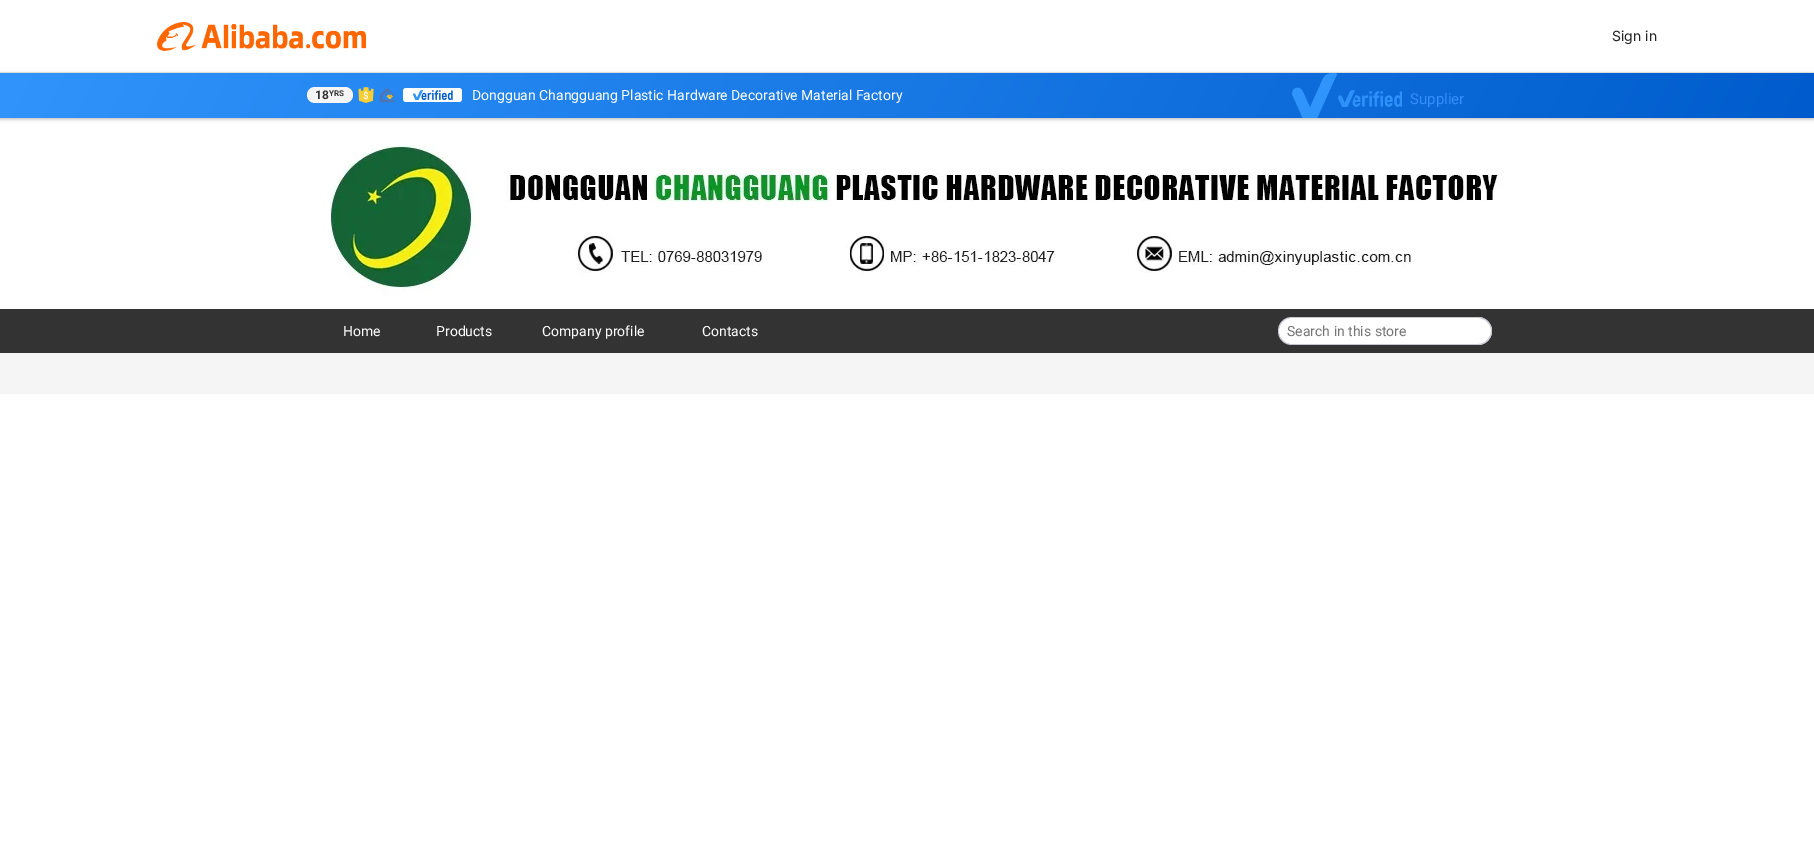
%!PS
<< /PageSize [1814 843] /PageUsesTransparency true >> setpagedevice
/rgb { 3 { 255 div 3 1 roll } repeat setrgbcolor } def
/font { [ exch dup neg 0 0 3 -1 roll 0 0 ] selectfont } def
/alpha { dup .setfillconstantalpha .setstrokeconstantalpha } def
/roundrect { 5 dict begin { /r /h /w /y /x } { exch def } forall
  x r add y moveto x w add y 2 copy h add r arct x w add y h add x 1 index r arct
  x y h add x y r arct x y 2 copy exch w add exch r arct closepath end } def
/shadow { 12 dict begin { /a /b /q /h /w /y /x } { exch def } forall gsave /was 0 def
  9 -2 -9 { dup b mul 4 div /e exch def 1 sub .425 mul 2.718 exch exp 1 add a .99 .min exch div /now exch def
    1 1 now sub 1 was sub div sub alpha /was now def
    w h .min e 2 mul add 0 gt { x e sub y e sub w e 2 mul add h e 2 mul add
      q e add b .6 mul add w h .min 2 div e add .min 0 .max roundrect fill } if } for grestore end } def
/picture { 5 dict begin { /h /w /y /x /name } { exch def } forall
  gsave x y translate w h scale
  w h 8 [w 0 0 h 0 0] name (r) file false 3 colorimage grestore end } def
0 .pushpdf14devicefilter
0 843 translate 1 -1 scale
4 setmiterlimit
255 255 255 rgb
0 0 1814 843 rectfill
0 0 0 rgb
0 74 1814 45 0 2 0.28 shadow
221 221 221 rgb
0 72 1814 1 rectfill
(img/1.rgb) 157 22 209 29 picture
gsave 0 73 moveto 1814 73 lineto 1814 118 lineto 0 118 lineto closepath clip newpath
<< /ShadingType 2 /ColorSpace /DeviceRGB /Coords [191 -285 1623 476] /Extend [true true] /Function << /FunctionType 2 /Domain [0 1] /C0 [0.188 0.58 0.988] /C1 [0 0.361 0.8] /N 1 >> >> shfill grestore
245 245 245 rgb
307 87 46 16 8 roundrect fill
(img/2.rgb) 358 87 16 16 picture
(img/3.rgb) 379 88 16 15 picture
255 255 255 rgb
403 88 59 14 3 roundrect fill
(img/4.rgb) 413 90 40 10 picture
(img/5.rgb) 1292 73 110 45 picture
(img/6.rgb) 307 145 1200 164 picture
51 51 51 rgb
0 309 1814 44 rectfill
196 198 207 rgb
1292 317 moveto 1459 317 lineto 1459 345 lineto 1292 345 lineto 1284 345 1278 339 1278 331 curveto 1278 323 1284 317 1292 317 curveto closepath 1292 318 moveto 1459 318 lineto 1459 344 lineto 1292 344 lineto 1285 344 1279 338 1279 331 curveto 1279 324 1285 318 1292 318 curveto closepath eofill
255 255 255 rgb
1292 318 moveto 1458.5 318 lineto 1459 318 1459 318 1459 318.5 curveto 1459 343.5 lineto 1459 344 1459 344 1458.5 344 curveto 1292 344 lineto 1285 344 1279 338 1279 331 curveto 1279 324 1285 318 1292 318 curveto closepath fill
1459 317 moveto 1478 317 lineto 1485.5 317 1492 323.5 1492 331 curveto 1492 338.5 1485.5 345 1478 345 curveto 1459 345 lineto closepath fill
196 198 207 rgb
1459 317 moveto 1478 317 lineto 1485.5 317 1492 323.5 1492 331 curveto 1492 338.5 1485.5 345 1478 345 curveto 1459 345 lineto closepath 1459 318 moveto 1478 318 lineto 1485 318 1491 324 1491 331 curveto 1491 338 1485 344 1478 344 curveto 1459 344 lineto closepath eofill
245 245 245 rgb
0 353 1814 41 rectfill
/Inter-Regular 14 font
34 34 34 rgb
1612 41 moveto (Sign in) show
/Roboto-Bold 12 font
51 51 51 rgb
315 99 moveto (18) show
/Roboto-Bold 8 font
329 96 moveto (YRS) show
/Roboto-Regular 14 font
255 255 255 rgb
472 100 moveto (Dongguan Changguang Plastic Hardware Decorative Material Factory) show
/Roboto-Regular 15 font
52 141 248 rgb
1410 104 moveto (Supplier) show
/Roboto-Regular 14 font
255 255 255 rgb
[
  [(Home) 343 336]
  [(Products) 436 336]
  [(Company profile) 542 336]
  [(Contacts) 702 336]
] { aload pop moveto show } forall
117 117 117 rgb
1287 336 moveto (Search in this store) show
.poppdf14devicefilter showpage
